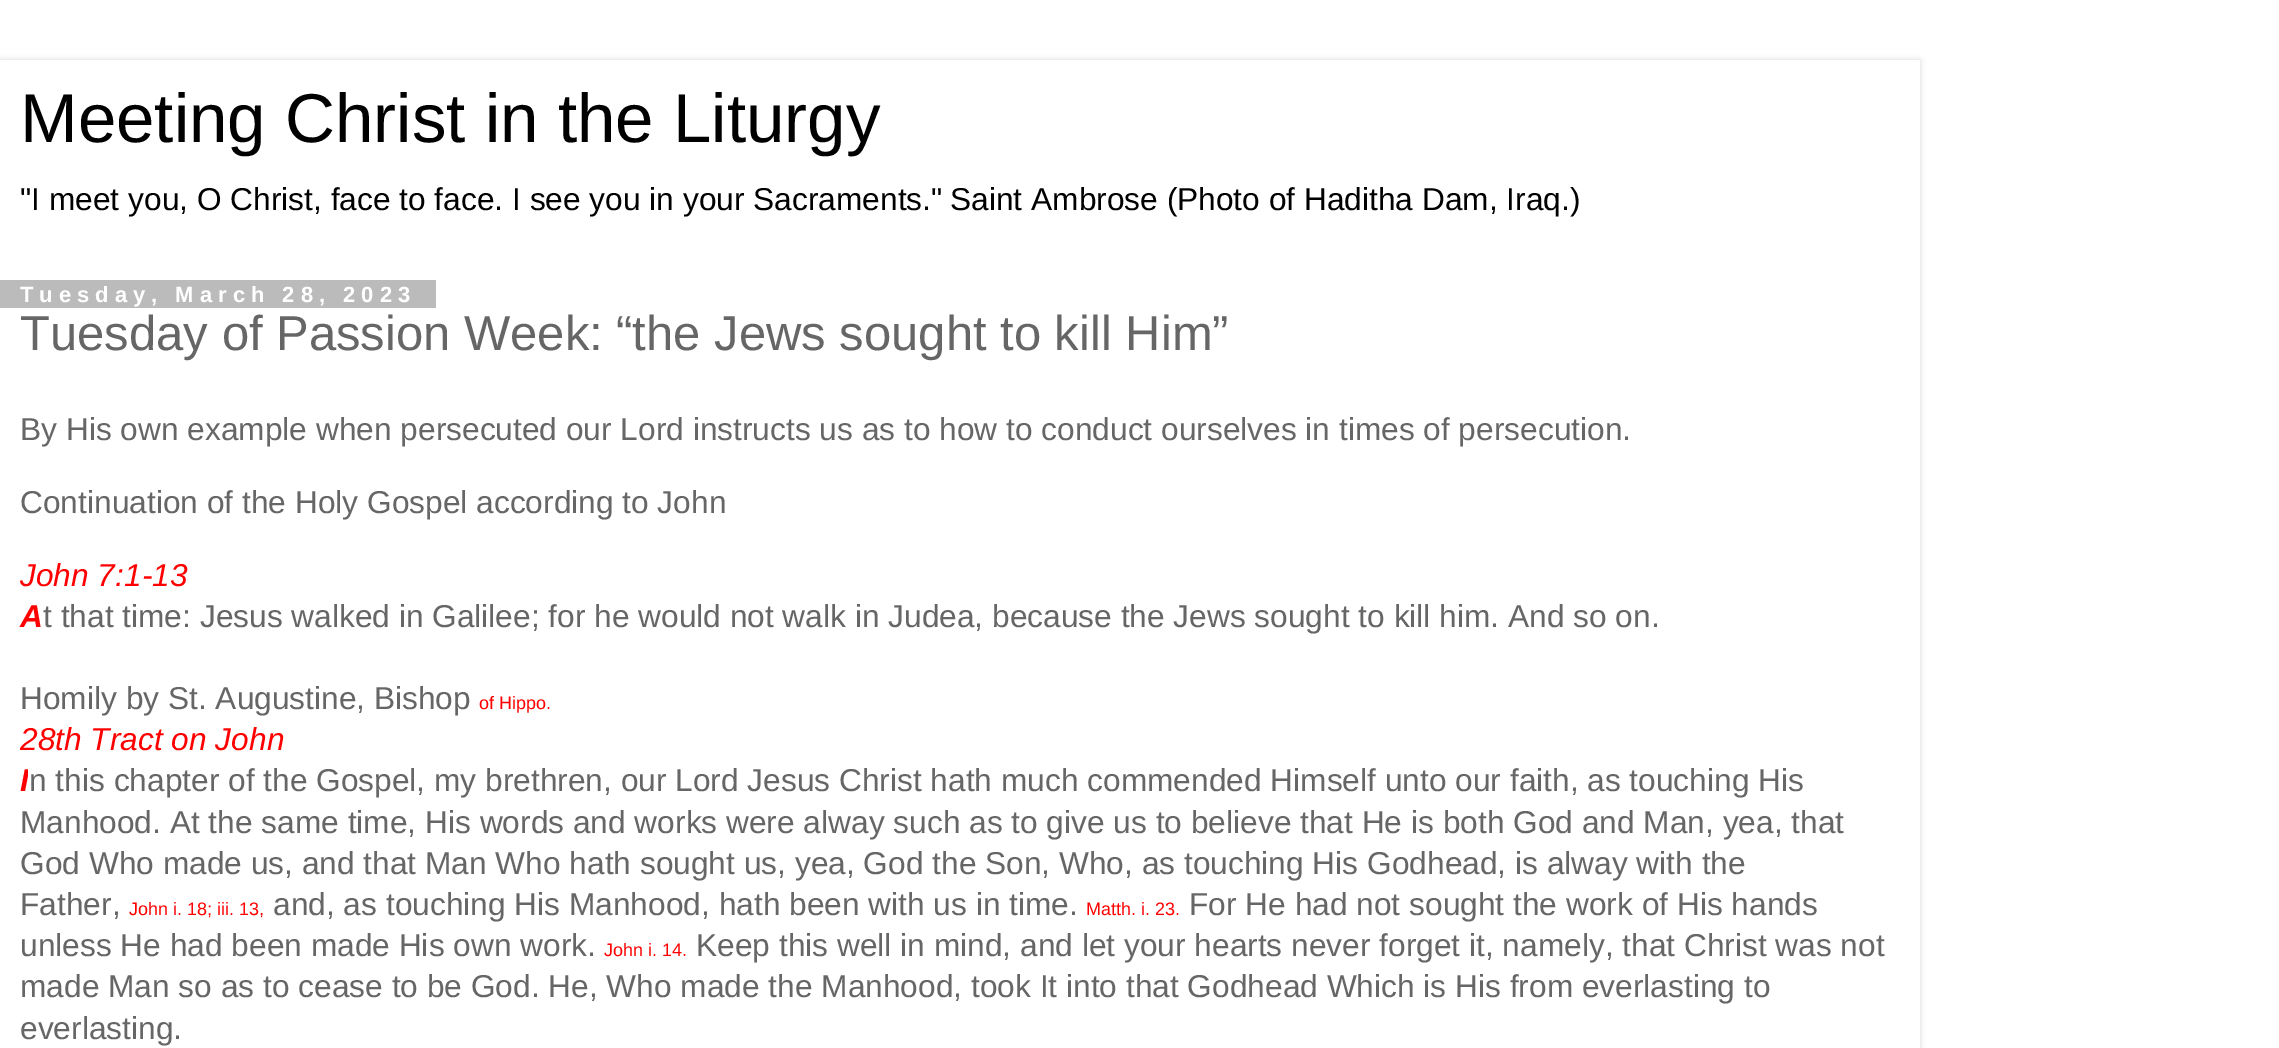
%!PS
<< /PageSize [2279 1048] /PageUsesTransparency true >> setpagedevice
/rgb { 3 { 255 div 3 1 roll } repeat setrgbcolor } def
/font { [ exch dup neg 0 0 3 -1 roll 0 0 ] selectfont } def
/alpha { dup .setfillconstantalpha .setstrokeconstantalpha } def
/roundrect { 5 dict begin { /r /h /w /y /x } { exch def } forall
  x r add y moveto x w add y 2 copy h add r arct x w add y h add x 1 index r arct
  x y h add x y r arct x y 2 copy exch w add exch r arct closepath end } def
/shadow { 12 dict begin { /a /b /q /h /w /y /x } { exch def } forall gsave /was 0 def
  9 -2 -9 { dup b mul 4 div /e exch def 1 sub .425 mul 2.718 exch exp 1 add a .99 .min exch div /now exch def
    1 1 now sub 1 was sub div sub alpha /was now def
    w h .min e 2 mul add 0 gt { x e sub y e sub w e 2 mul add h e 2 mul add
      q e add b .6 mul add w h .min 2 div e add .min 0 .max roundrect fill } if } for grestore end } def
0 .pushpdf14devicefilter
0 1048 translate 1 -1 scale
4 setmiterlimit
255 255 255 rgb
0 0 2279 1048 rectfill
gsave
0 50 moveto 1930 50 lineto 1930 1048 lineto 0 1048 lineto closepath 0 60 moveto 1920 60 lineto 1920 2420 lineto 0 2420 lineto closepath eoclip newpath
0 0 0 rgb
0 60 1920 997 0 3 0.15 shadow
grestore
187 187 187 rgb
0 280 436 28 rectfill
/LiberationSans-Regular 69.1 font
0 0 0 rgb
20 142 moveto (Meeting Christ in the Liturgy) show
/LiberationSans-Regular 31.68 font
[
  [("I meet you, O Christ, face to face.) 20 210]
  [(I see you in your Sacraments.") 512 210]
  [(Saint Ambrose \(Photo of Haditha Dam, Iraq.\)) 950 210]
] { aload pop moveto show } forall
/LiberationSans-Bold 22 font
255 255 255 rgb
20 302 moveto 6 0 (Tuesday, March 28, 2023) ashow
/LiberationSans-Regular 49 font
102 102 102 rgb
20 350 moveto (Tuesday of Passion Week:) show
616 350 moveto (“the Jews sought to kill Him”) show
/LiberationSans-Regular 31.68 font
20 440 moveto (By His own example when persecuted our Lord instructs us as to how to conduct ourselves in times of persecution.) show
20 513 moveto (Continuation of the Holy Gospel according to John) show
/LiberationSans-Italic 31.68 font
255 0 0 rgb
20 586 moveto (John 7:1-13) show
/LiberationSans-BoldItalic 31.68 font
20 627 moveto (A) show
/LiberationSans-Regular 31.68 font
102 102 102 rgb
43 627 moveto (t that time: Jesus walked in Galilee; for he would not walk in Judea, because the Jews sought to kill him. And so on.) show
20 709 moveto (Homily by St. Augustine, Bishop) show
/LiberationSans-Regular 18 font
255 0 0 rgb
479 709 moveto (of Hippo.) show
/LiberationSans-Italic 31.68 font
20 750 moveto (28th Tract on John) show
/LiberationSans-BoldItalic 31.68 font
20 791 moveto (I) show
/LiberationSans-Regular 31.68 font
102 102 102 rgb
29 791 moveto (n this chapter of the Gospel, my brethren, our Lord Jesus Christ hath much commended Himself unto our faith, as touching His) show
255 255 255 rgb
28 769 2 7 rectfill
102 102 102 rgb
[
  [(Manhood. At the same time, His words and works were alway such as to give us to believe that He is both God and Man, yea, that) 20 833]
  [(God Who made us, and that Man Who hath sought us, yea, God the Son, Who, as touching His Godhead, is alway with the) 20 874]
  [(Father,) 20 915]
] { aload pop moveto show } forall
/LiberationSans-Regular 18 font
255 0 0 rgb
129 915 moveto (John i. 18; iii. 13,) show
/LiberationSans-Regular 31.68 font
102 102 102 rgb
273 915 moveto (and, as touching His Manhood, hath been with us in time.) show
/LiberationSans-Regular 18 font
255 0 0 rgb
1086 915 moveto (Matth. i. 23.) show
/LiberationSans-Regular 31.68 font
102 102 102 rgb
1189 915 moveto (For He had not sought the work of His hands) show
20 956 moveto (unless He had been made His own work.) show
/LiberationSans-Regular 18 font
255 0 0 rgb
604 956 moveto (John i. 14.) show
/LiberationSans-Regular 31.68 font
102 102 102 rgb
[
  [(Keep this well in mind, and let your hearts never forget it, namely, that Christ was not) 696 956]
  [(made Man so as to cease to be God. He, Who made the Manhood, took It into that Godhead Which is His from everlasting to) 20 997]
  [(everlasting.) 20 1039]
] { aload pop moveto show } forall
.poppdf14devicefilter showpage
